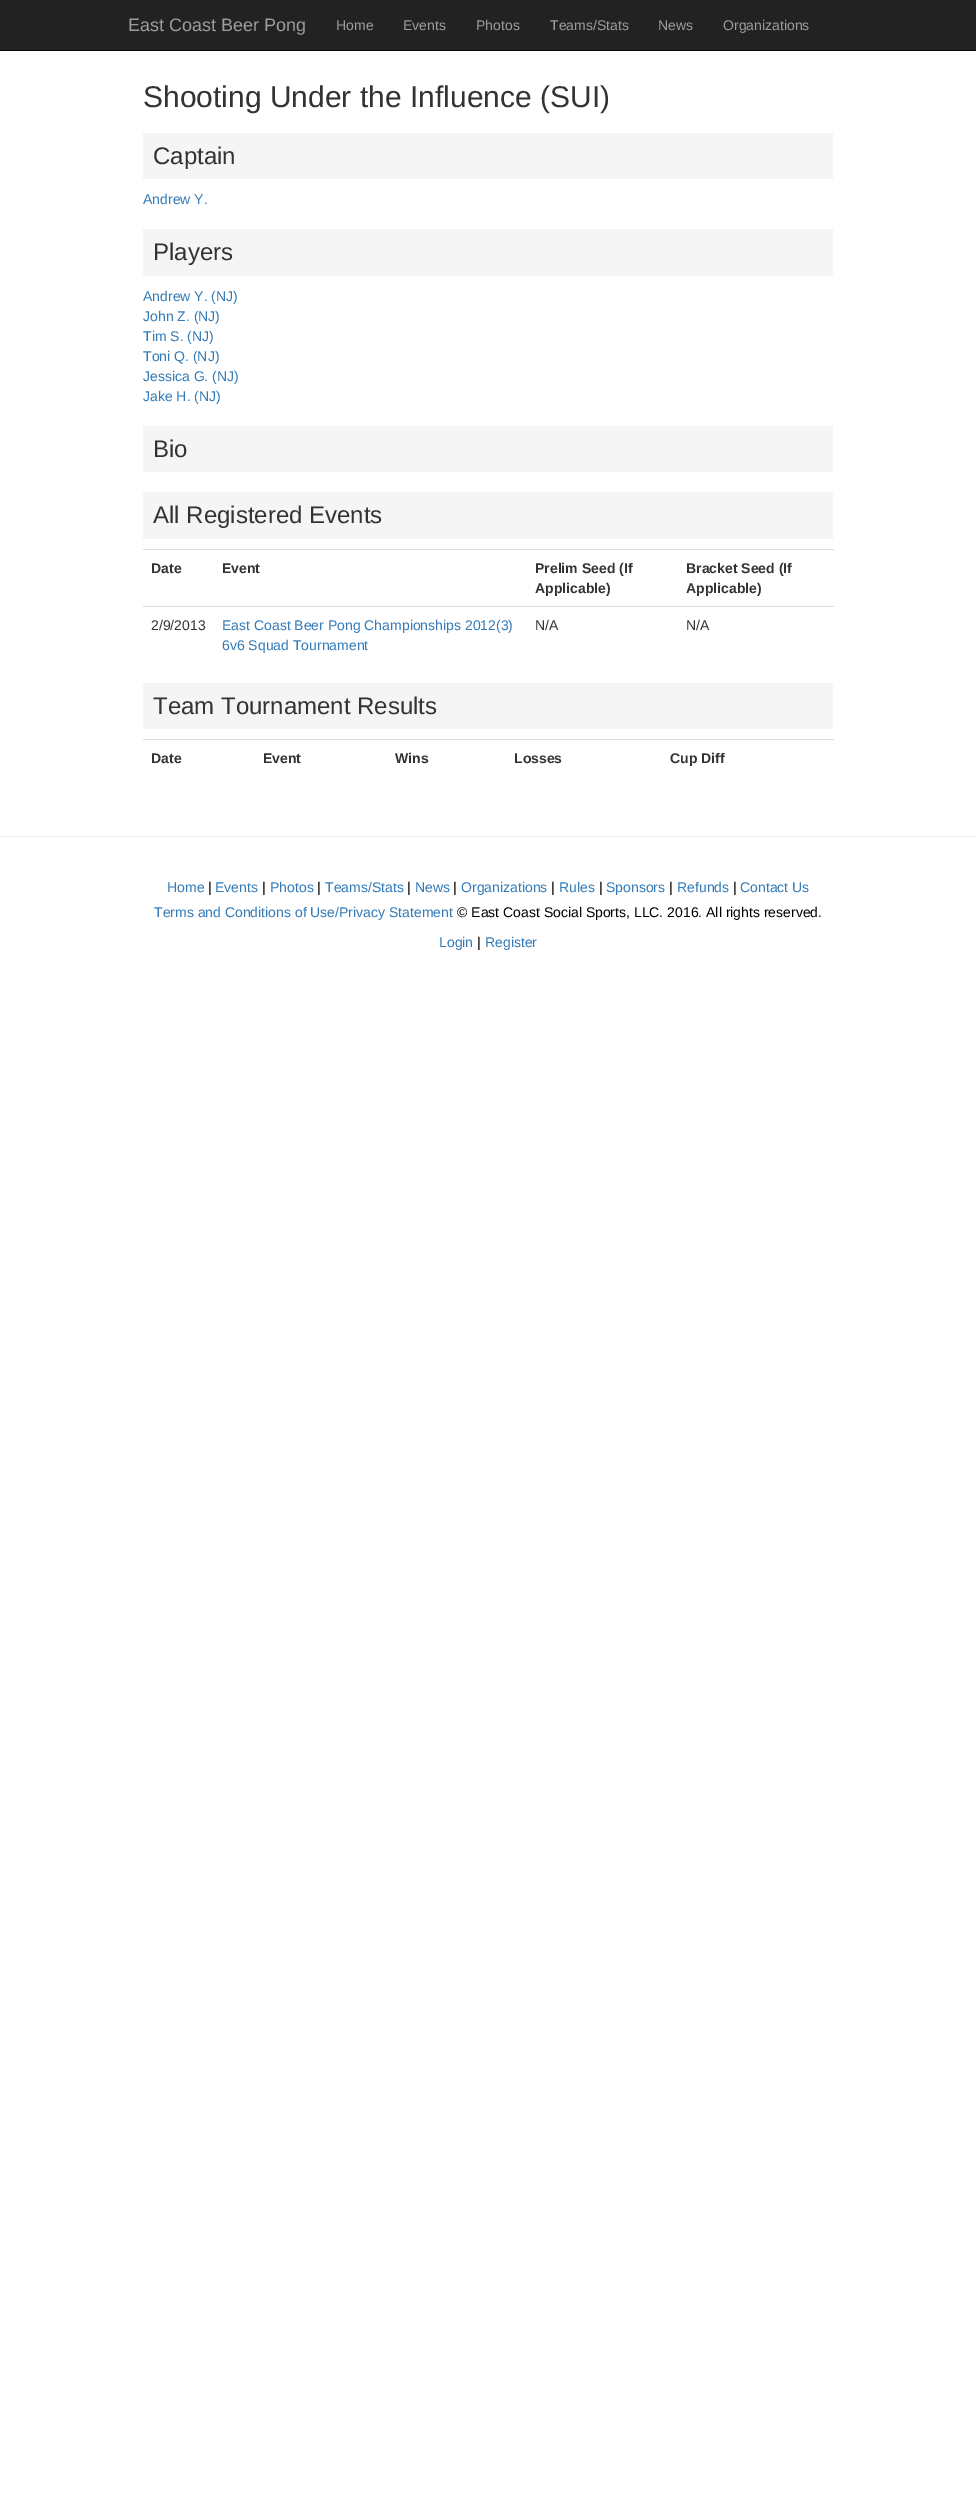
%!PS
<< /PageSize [976 2518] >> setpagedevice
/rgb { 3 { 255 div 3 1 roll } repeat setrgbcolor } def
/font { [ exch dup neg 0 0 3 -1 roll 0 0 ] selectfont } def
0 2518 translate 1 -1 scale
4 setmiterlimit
255 255 255 rgb
0 0 976 2518 rectfill
[
  [0 0 976 50 34 34 34]
  [0 50 976 1 8 8 8]
  [143 133 690 46 245 245 245]
  [143 229 690 47 245 245 245]
  [143 426 690 46 245 245 245]
  [143 492 690 47 245 245 245]
  [143 549 691 1 221 221 221]
  [143 606 691 1 221 221 221]
  [143 683 690 46 245 245 245]
  [143 739 691 1 221 221 221]
  [0 836 976 1 238 238 238]
] { aload pop rgb rectfill } forall
/LiberationSans-Regular 18 font
157 157 157 rgb
128 31 moveto (East Coast Beer Pong) show
/LiberationSans-Regular 14 font
[
  [(Home) 336 30]
  [(Events) 403 30]
  [(Photos) 476 30]
  [(Teams/Stats) 550 30]
  [(News) 658 30]
  [(Organizations) 723 30]
] { aload pop moveto show } forall
/LiberationSans-Regular 30 font
51 51 51 rgb
143 107 moveto (Shooting Under the Influence \(SUI\)) show
/LiberationSans-Regular 24 font
153 164 moveto (Captain) show
/LiberationSans-Regular 14 font
51 122 183 rgb
143 204 moveto (Andrew Y.) show
/LiberationSans-Regular 24 font
51 51 51 rgb
153 260 moveto (Players) show
/LiberationSans-Regular 14 font
51 122 183 rgb
[
  [(Andrew Y. \(NJ\)) 143 301]
  [(John Z. \(NJ\)) 143 321]
  [(Tim S. \(NJ\)) 143 341]
  [(Toni Q. \(NJ\)) 143 361]
  [(Jessica G. \(NJ\)) 143 381]
  [(Jake H. \(NJ\)) 143 401]
] { aload pop moveto show } forall
/LiberationSans-Regular 24 font
51 51 51 rgb
153 457 moveto (Bio) show
153 523 moveto (All Registered Events) show
/LiberationSans-Bold 14 font
[
  [(Date) 151 573]
  [(Event) 222 573]
  [(Prelim Seed \(If) 535 573]
  [(Applicable\)) 535 593]
  [(Bracket Seed \(If) 686 573]
  [(Applicable\)) 686 593]
] { aload pop moveto show } forall
/LiberationSans-Regular 14 font
151 630 moveto (2/9/2013) show
51 122 183 rgb
222 630 moveto (East Coast Beer Pong Championships 2012\(3\)) show
222 650 moveto (6v6 Squad Tournament) show
51 51 51 rgb
535 630 moveto (N/A) show
686 630 moveto (N/A) show
/LiberationSans-Regular 24 font
153 714 moveto (Team Tournament Results) show
/LiberationSans-Bold 14 font
[
  [(Date) 151 763]
  [(Event) 263 763]
  [(Wins) 395 763]
  [(Losses) 514 763]
  [(Cup Diff) 670 763]
] { aload pop moveto show } forall
/LiberationSans-Regular 14 font
51 122 183 rgb
167 892 moveto (Home) show
0 0 0 rgb
208 892 moveto (|) show
51 122 183 rgb
215 892 moveto (Events) show
0 0 0 rgb
262 892 moveto (|) show
51 122 183 rgb
270 892 moveto (Photos) show
0 0 0 rgb
317 892 moveto (|) show
51 122 183 rgb
325 892 moveto (Teams/Stats) show
0 0 0 rgb
407 892 moveto (|) show
51 122 183 rgb
415 892 moveto (News) show
0 0 0 rgb
453 892 moveto (|) show
51 122 183 rgb
461 892 moveto (Organizations) show
0 0 0 rgb
551 892 moveto (|) show
51 122 183 rgb
559 892 moveto (Rules) show
0 0 0 rgb
599 892 moveto (|) show
51 122 183 rgb
606 892 moveto (Sponsors) show
0 0 0 rgb
669 892 moveto (|) show
51 122 183 rgb
677 892 moveto (Refunds) show
0 0 0 rgb
733 892 moveto (|) show
51 122 183 rgb
740 892 moveto (Contact Us) show
154 917 moveto (Terms and Conditions of Use/Privacy Statement) show
0 0 0 rgb
457 917 moveto (© East Coast Social Sports, LLC. 2016. All rights reserved.) show
51 122 183 rgb
439 947 moveto (Login) show
0 0 0 rgb
477 947 moveto (|) show
51 122 183 rgb
485 947 moveto (Register) show
showpage
